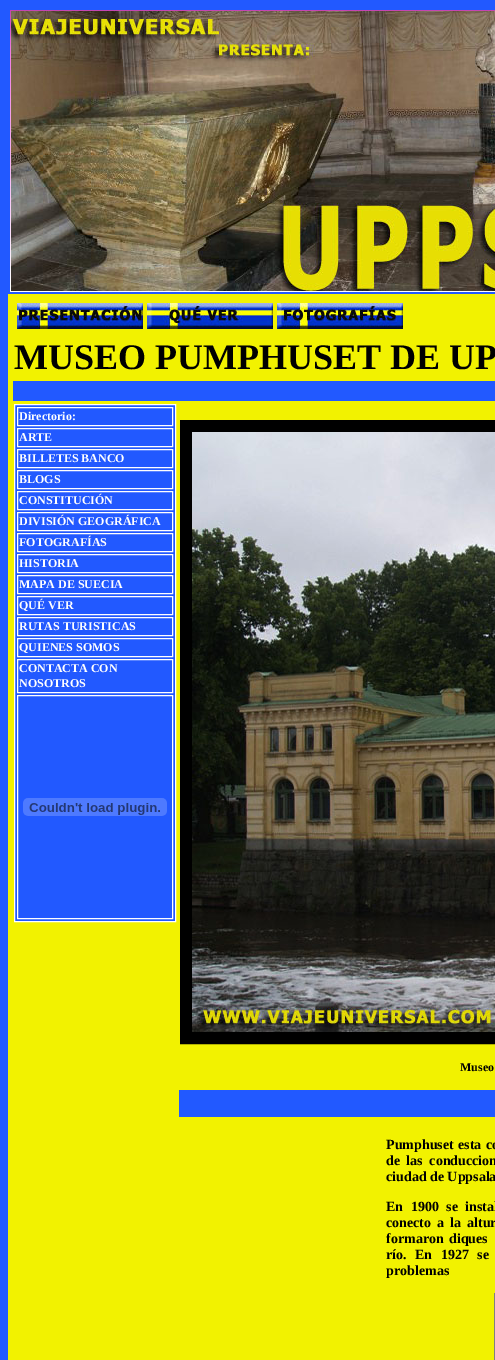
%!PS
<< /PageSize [495 1360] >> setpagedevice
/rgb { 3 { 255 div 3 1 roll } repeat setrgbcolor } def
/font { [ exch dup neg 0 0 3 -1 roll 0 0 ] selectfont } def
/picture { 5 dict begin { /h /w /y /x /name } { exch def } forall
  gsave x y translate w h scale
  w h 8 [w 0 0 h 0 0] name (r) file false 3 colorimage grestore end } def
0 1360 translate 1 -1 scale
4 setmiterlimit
34 89 255 rgb
0 0 495 1360 rectfill
(img/1.rgb) 10 10 485 282 picture
(img/2.rgb) 11 11 484 280 picture
242 242 0 rgb
8 294 487 1066 rectfill
(img/3.rgb) 17 303 126 26 picture
(img/4.rgb) 147 303 126 26 picture
(img/5.rgb) 277 303 126 26 picture
34 89 255 rgb
13 381 482 20 rectfill
14.5 404.5 moveto 175.5 404.5 lineto 175.5 921.5 lineto 14.5 921.5 lineto closepath gsave fill grestore
255 255 255 rgb
stroke
17.5 407.5 155 18 rectstroke
17.5 428.5 155 18 rectstroke
17.5 449.5 155 18 rectstroke
17.5 470.5 155 18 rectstroke
17.5 491.5 155 18 rectstroke
17.5 512.5 155 18 rectstroke
17.5 533.5 155 18 rectstroke
17.5 554.5 155 18 rectstroke
17.5 575.5 155 18 rectstroke
17.5 596.5 155 18 rectstroke
17.5 617.5 155 18 rectstroke
17.5 638.5 155 18 rectstroke
17.5 659.5 155 33 rectstroke
17.5 695.5 155 223 rectstroke
(img/6.rgb) 23 798 144 18 picture
0 0 0 rgb
12 setlinewidth
186 426 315 612 rectstroke
(img/7.rgb) 192 432 303 600 picture
34 89 255 rgb
179 1090 316 27 rectfill
128 128 128 rgb
494 1293 1 67 rectfill
/LiberationSerif-Bold 36 font
0 0 0 rgb
14 369 moveto (MUSEO PUMPHUSET DE UP) show
/LiberationSerif-Bold 12 font
255 255 255 rgb
[
  [(Directorio:) 19 420]
  [(ARTE) 19 441]
  [(BILLETES BANCO) 19 462]
  [(BLOGS) 19 483]
  [(CONSTITUCIÓN) 19 504]
  [(DIVISIÓN GEOGRÁFICA) 19 525]
  [(FOTOGRAFÍAS) 19 546]
  [(HISTORIA) 19 567]
  [(MAPA DE SUECIA) 19 588]
  [(QUÉ VER) 19 609]
  [(RUTAS TURISTICAS) 19 630]
  [(QUIENES SOMOS) 19 651]
  [(CONTACTA CON) 19 672]
  [(NOSOTROS) 19 687]
] { aload pop moveto show } forall
0 0 0 rgb
460 1071 moveto (Museo) show
/LiberationSerif-Bold 14 font
386 1149 moveto 1 0 32 (Pumphuset esta co) widthshow
386 1165 moveto 3 0 32 (de las conduccion) widthshow
386 1181 moveto (ciudad de Uppsala) show
386 1211 moveto 4 0 32 (En 1900 se instal) widthshow
386 1227 moveto 2.5 0 32 (conecto a la altur) widthshow
386 1243 moveto 2 0 32 (formaron diques) widthshow
386 1259 moveto 5 0 32 (río. En 1927 se) widthshow
386 1275 moveto (problemas) show
showpage
